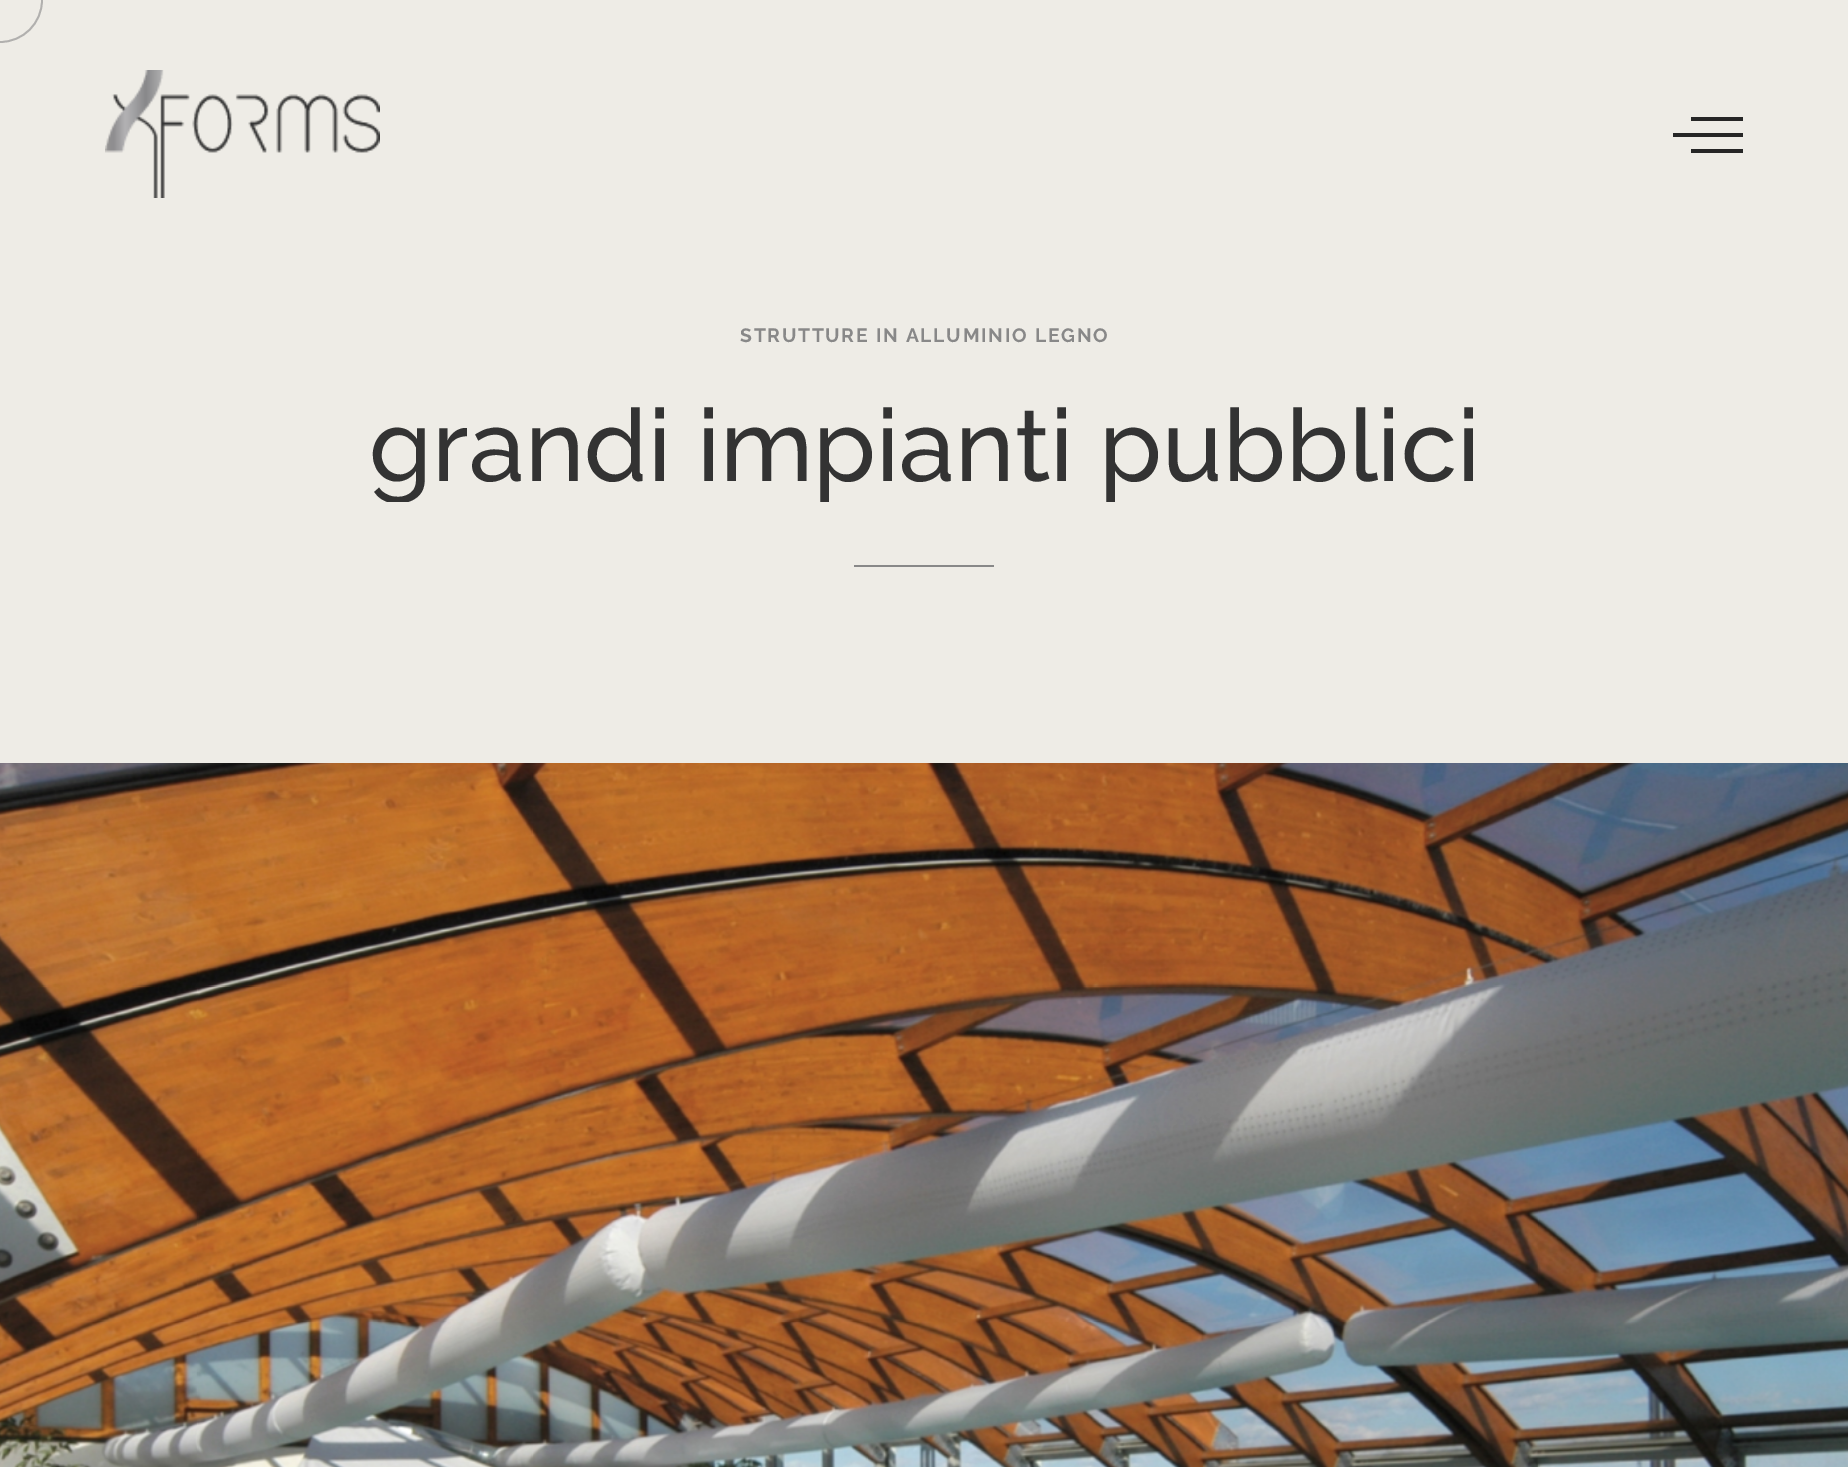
%!PS
<< /PageSize [1848 1467] >> setpagedevice
/rgb { 3 { 255 div 3 1 roll } repeat setrgbcolor } def
/font { [ exch dup neg 0 0 3 -1 roll 0 0 ] selectfont } def
/circle { newpath 0 360 arc closepath } def
/picture { 5 dict begin { /h /w /y /x /name } { exch def } forall
  gsave x y translate w h scale
  w h 8 [w 0 0 h 0 0] name (r) file false 3 colorimage grestore end } def
0 1467 translate 1 -1 scale
4 setmiterlimit
238 236 230 rgb
0 0 1848 1467 rectfill
177 176 174 rgb
1.8 setlinewidth
0 0 42 circle stroke
(img/1.rgb) 105 70 275 128 picture
[
  [1691 117 52 4 38 38 38]
  [1673 133 70 4 38 38 38]
  [1691 149 52 4 38 38 38]
  [854 565 140 2 136 136 136]
] { aload pop rgb rectfill } forall
(img/2.rgb) 0 763 1848 704 picture
/Raleway-Bold 19.25 font
740 342 moveto 1.75 0 (STRUTTURE IN ALLUMINIO LEGNO) ashow
gsave
105 389 1638 113 rectclip
/Raleway-Medium 101 font
51 51 51 rgb
369 481 moveto (grandi impianti pubblici) show
grestore
showpage
